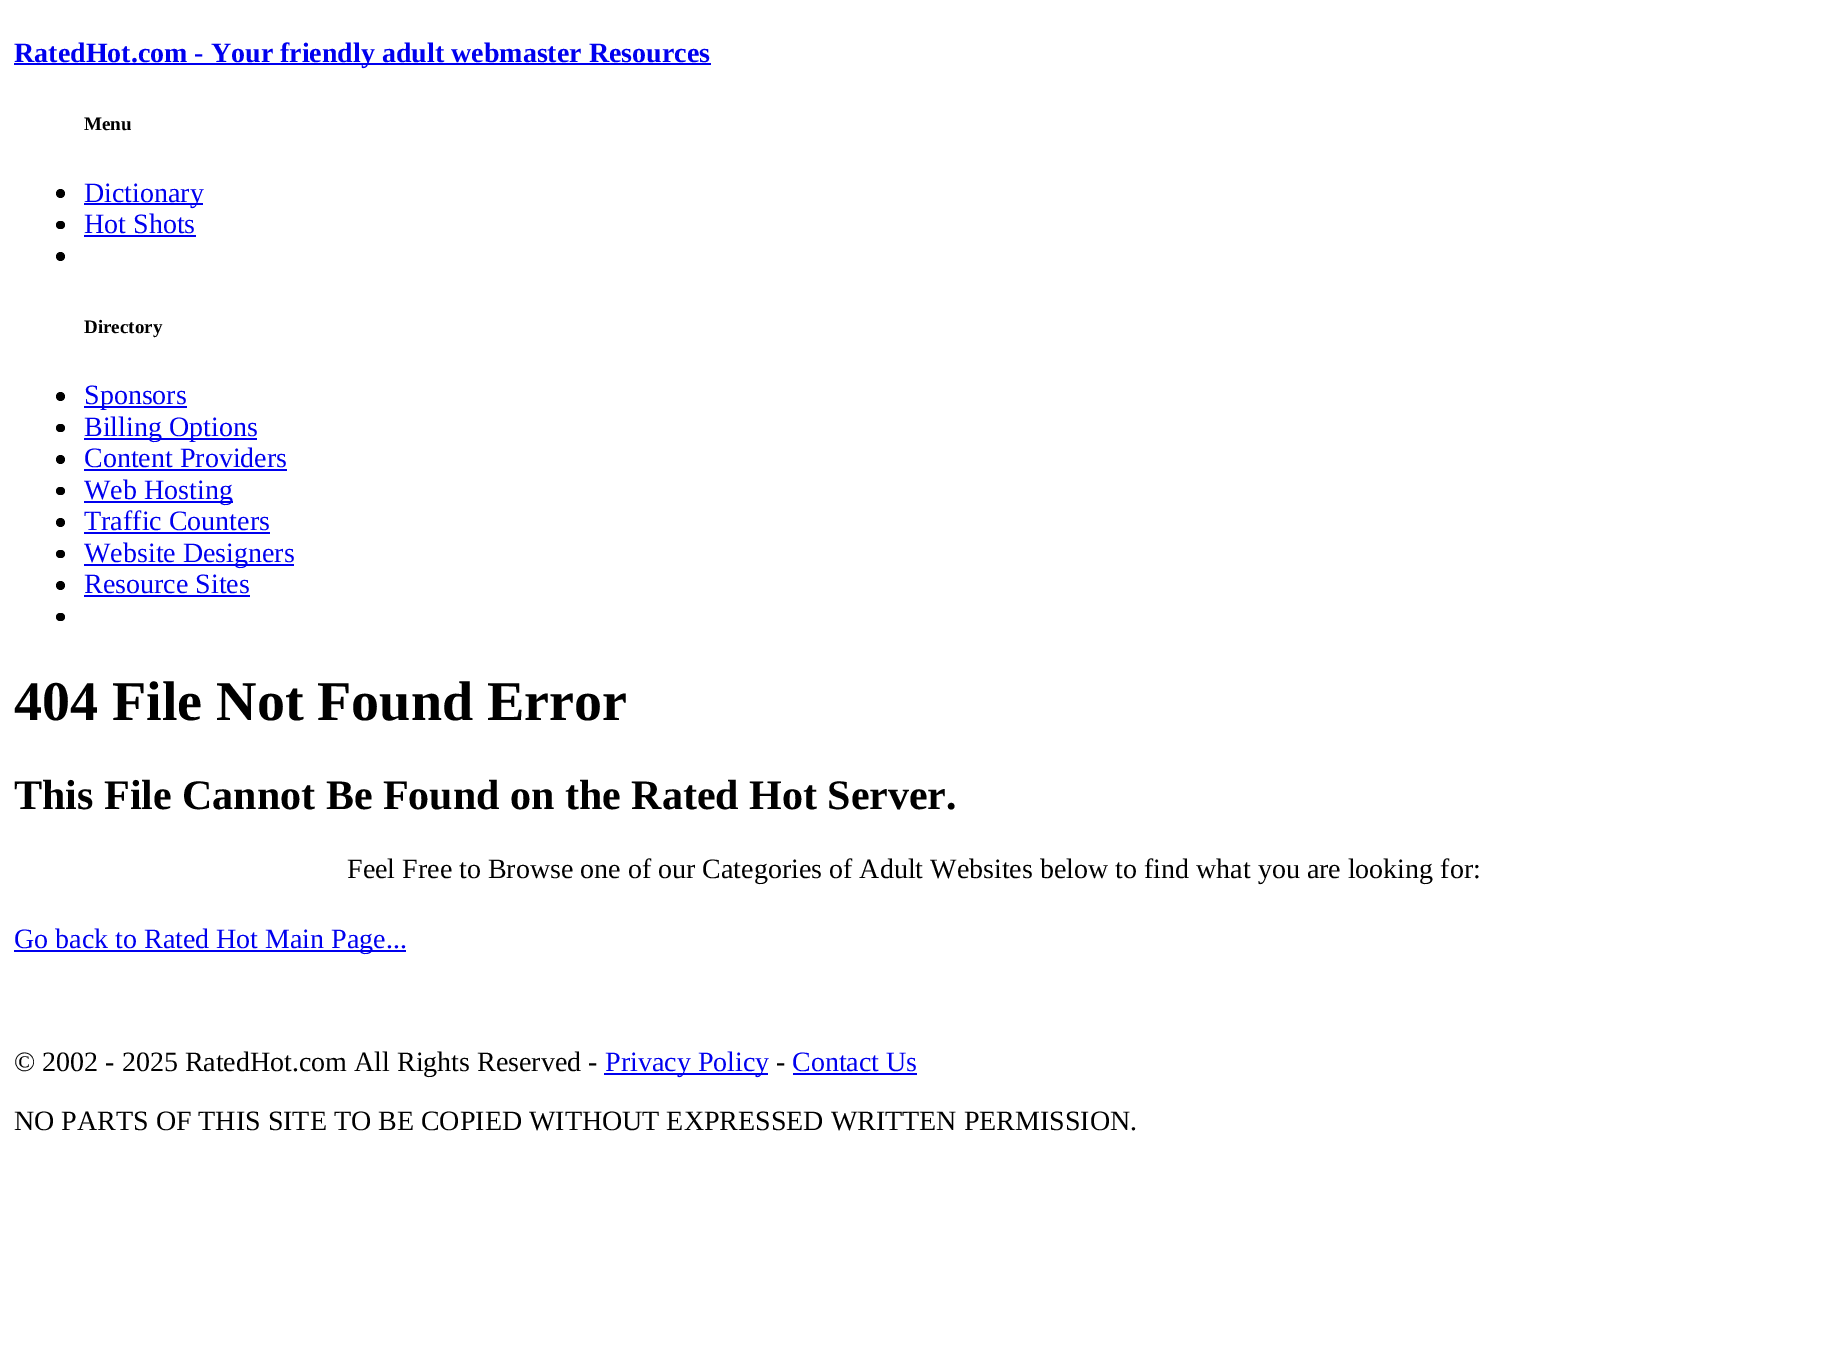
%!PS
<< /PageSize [1826 1356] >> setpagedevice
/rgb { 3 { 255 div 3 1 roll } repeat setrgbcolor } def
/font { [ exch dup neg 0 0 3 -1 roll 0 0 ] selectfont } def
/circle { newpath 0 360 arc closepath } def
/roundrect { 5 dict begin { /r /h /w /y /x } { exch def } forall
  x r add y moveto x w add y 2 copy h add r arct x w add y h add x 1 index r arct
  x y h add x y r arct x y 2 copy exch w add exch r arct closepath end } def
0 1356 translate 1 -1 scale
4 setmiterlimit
255 255 255 rgb
0 0 1826 1356 rectfill
0 0 238 rgb
14 63 697 2 rectfill
0 0 0 rgb
60.5 193.5 4.5 circle fill
0 0 238 rgb
84 203 119 2 rectfill
0 0 0 rgb
56 221 9 8 4 roundrect fill
0 0 238 rgb
84 235 112 2 rectfill
0 0 0 rgb
60.5 256.5 4.5 circle fill
60.5 396.5 4.5 circle fill
0 0 238 rgb
84 406 103 2 rectfill
0 0 0 rgb
56 424 9 8 4 roundrect fill
0 0 238 rgb
84 438 173 2 rectfill
0 0 0 rgb
60.5 459.5 4.5 circle fill
0 0 238 rgb
84 469 203 2 rectfill
0 0 0 rgb
56 487 9 8 4 roundrect fill
0 0 238 rgb
84 501 149 2 rectfill
0 0 0 rgb
60.5 522.5 4.5 circle fill
0 0 238 rgb
84 532 186 2 rectfill
0 0 0 rgb
56 550 9 8 4 roundrect fill
0 0 238 rgb
84 564 210 2 rectfill
0 0 0 rgb
60.5 585.5 4.5 circle fill
0 0 238 rgb
84 595 166 2 rectfill
0 0 0 rgb
56 613 9 8 4 roundrect fill
[
  [14 950 392 2 0 0 238]
  [604 1073 164 2 0 0 238]
  [793 1073 124 2 0 0 238]
] { aload pop rgb rectfill } forall
/LiberationSerif-Bold 28 font
14 62 moveto (RatedHot.com - Your friendly adult webmaster Resources) show
/LiberationSerif-Bold 19 font
0 0 0 rgb
84 130 moveto (Menu) show
/LiberationSerif-Regular 28 font
0 0 238 rgb
84 202 moveto (Dictionary) show
84 233 moveto (Hot Shots) show
/LiberationSerif-Bold 19 font
0 0 0 rgb
84 333 moveto (Directory) show
/LiberationSerif-Regular 28 font
0 0 238 rgb
[
  [(Sponsors) 84 404]
  [(Billing Options) 84 436]
  [(Content Providers) 84 467]
  [(Web Hosting) 84 499]
  [(Traffic Counters) 84 530]
  [(Website Designers) 84 562]
  [(Resource Sites) 84 593]
] { aload pop moveto show } forall
/LiberationSerif-Bold 56 font
0 0 0 rgb
14 720 moveto (404 File Not Found Error) show
/LiberationSerif-Bold 42 font
14 809 moveto (This File Cannot Be Found on the Rated Hot Server.) show
/LiberationSerif-Regular 28 font
347 878 moveto (Feel Free to Browse one of our Categories of Adult Websites below to find what you are looking for:) show
0 0 238 rgb
14 948 moveto (Go back to Rated Hot Main Page...) show
0 0 0 rgb
14 1071 moveto (© 2002 - 2025 RatedHot.com All Rights Reserved -) show
0 0 238 rgb
605 1071 moveto (Privacy Policy) show
0 0 0 rgb
776 1071 moveto (-) show
0 0 238 rgb
792 1071 moveto (Contact Us) show
0 0 0 rgb
14 1130 moveto (NO PARTS OF THIS SITE TO BE COPIED WITHOUT EXPRESSED WRITTEN PERMISSION.) show
showpage
